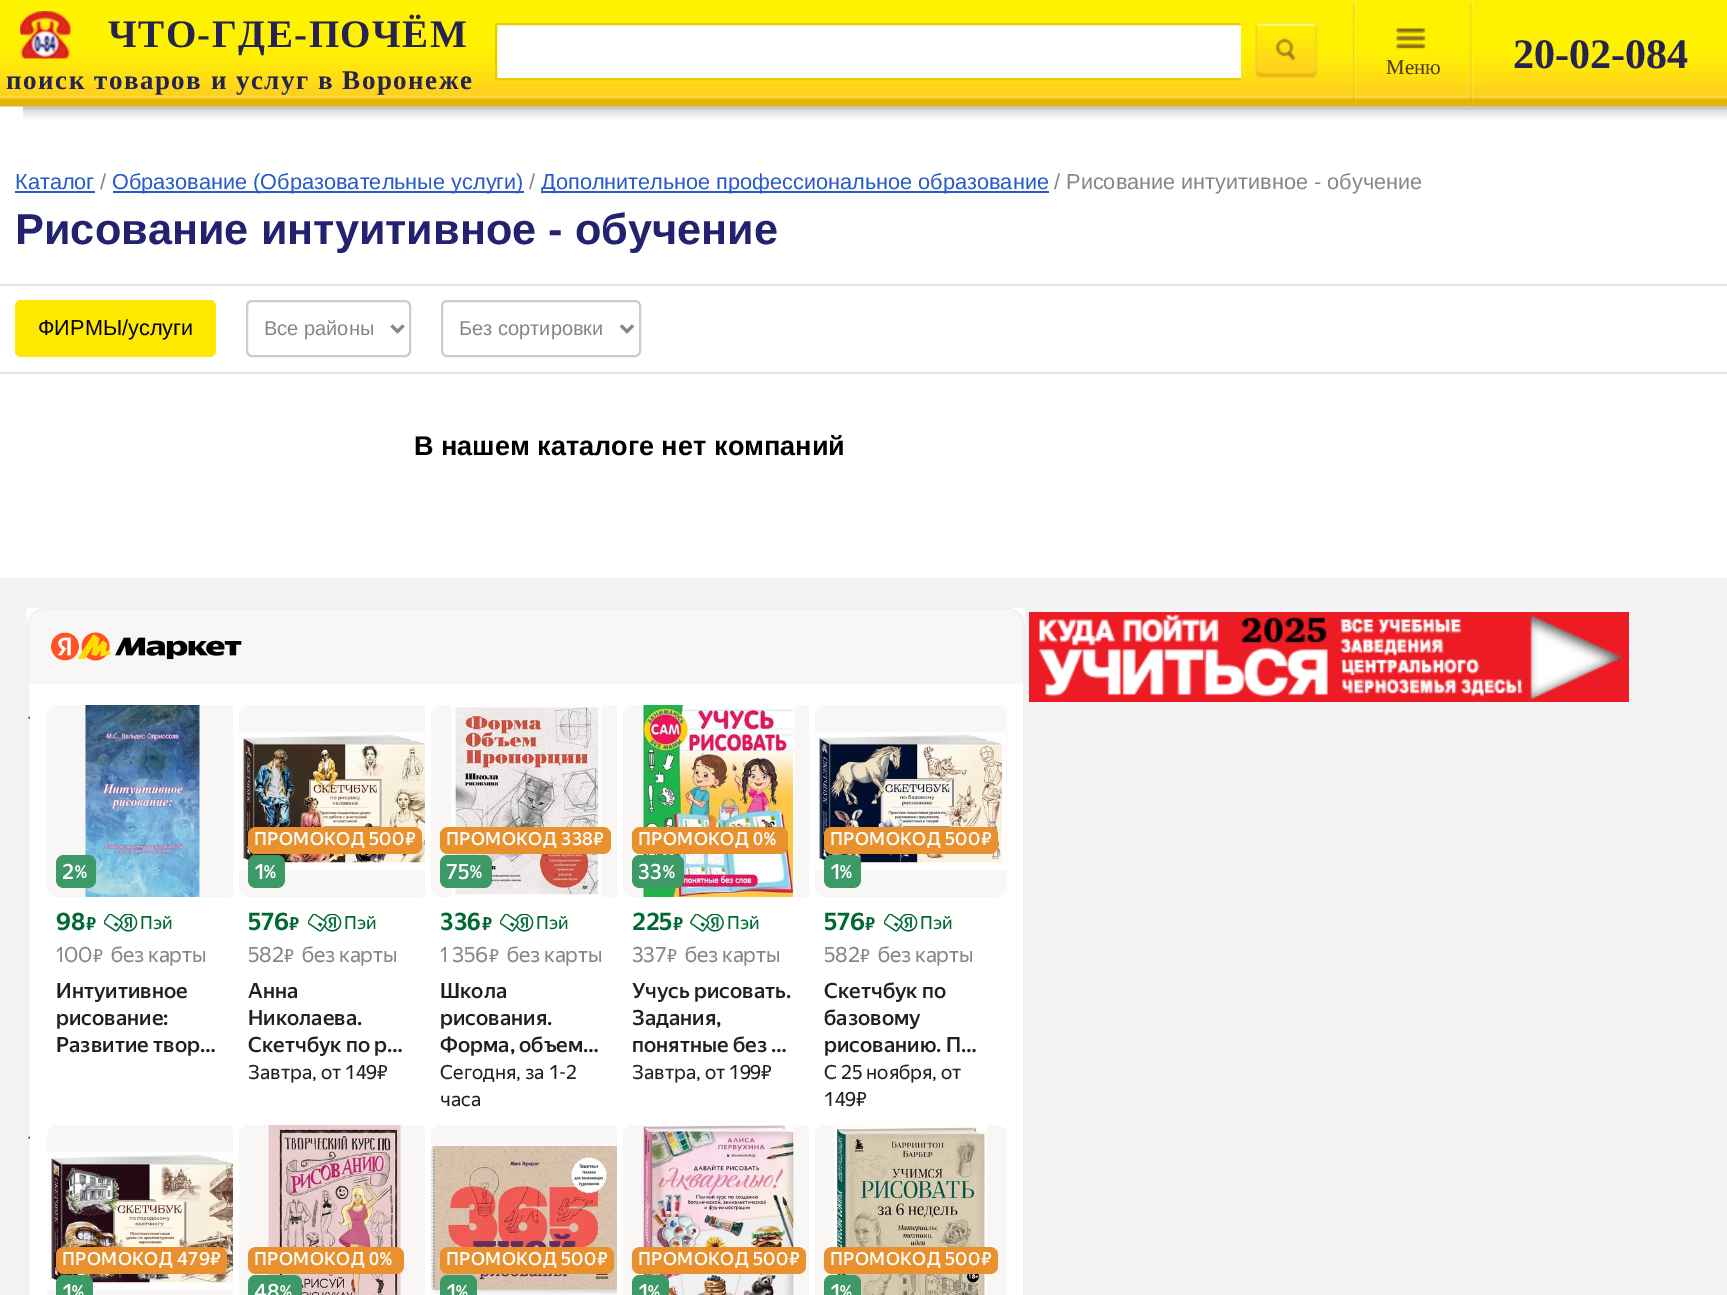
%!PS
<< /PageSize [1727 1295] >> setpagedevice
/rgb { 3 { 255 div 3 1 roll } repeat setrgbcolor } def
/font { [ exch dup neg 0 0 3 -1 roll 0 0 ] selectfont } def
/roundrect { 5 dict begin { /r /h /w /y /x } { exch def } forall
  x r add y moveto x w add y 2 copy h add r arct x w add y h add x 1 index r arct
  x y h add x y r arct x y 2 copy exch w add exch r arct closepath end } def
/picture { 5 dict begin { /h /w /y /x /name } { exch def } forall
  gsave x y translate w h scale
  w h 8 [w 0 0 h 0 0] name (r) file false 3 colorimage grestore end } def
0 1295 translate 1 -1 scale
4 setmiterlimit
243 243 245 rgb
0 0 1727 1295 rectfill
255 255 255 rgb
0 106 1727 178 rectfill
(img/6.rgb) 23 106 1704 14 picture
(img/1.rgb) 0 0 1727 107 picture
(img/2.rgb) 20 11 51 48 picture
497 25 744 53 rectfill
gsave
480 0 761 122 rectclip
230 204 0 rgb
2 setlinewidth
496 24 759 55 rectstroke
grestore
(img/3.rgb) 1255 22 63 57 picture
(img/4.rgb) 1353 0 3 105 picture
(img/5.rgb) 1396 28 30 21 picture
(img/4.rgb) 1470 0 3 105 picture
[
  [15 191 80 2 39 90 205]
  [113 191 411 2 39 90 205]
  [542 191 507 2 39 90 205]
  [0 286 1727 292 255 255 255]
  [0 284 1727 2 227 227 227]
  [0 372 1727 2 227 227 227]
] { aload pop rgb rectfill } forall
255 233 0 rgb
15 300 201 57 6 roundrect fill
204 204 204 rgb
2 setlinewidth
247 301 163 55 5 roundrect stroke
134 134 134 rgb
3 setlinewidth
391.5 325.5 moveto 397.5 331.5 lineto 403.5 325.5 lineto stroke
204 204 204 rgb
2 setlinewidth
442 301 198 55 5 roundrect stroke
134 134 134 rgb
3 setlinewidth
621 325.5 moveto 627 331.5 lineto 633 325.5 lineto stroke
(img/7.rgb) 1029 612 600 90 picture
255 255 255 rgb
27 608 998 687 rectfill
241 240 237 rgb
2 setlinewidth
28 609 996 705 17 roundrect stroke
248 247 245 rgb
46 609 moveto 1006 609 lineto 1015.5 609 1023 616.5 1023 626 curveto 1023 684 lineto 29 684 lineto 29 626 lineto 29 616.5 36.5 609 46 609 curveto closepath fill
(img/8.rgb) 51 632 191 29 picture
(img/9.rgb) 28 716 2 3 picture
47 705 192 192 11 roundrect fill
(img/10.rgb) 85 705 115 192 picture
61 153 102 rgb
56 855 40 33 8 roundrect fill
(img/11.rgb) 104 914 34 18 picture
255 255 255 rgb
233 706 6 190 rectfill
248 247 245 rgb
239 705 192 192 11 roundrect fill
(img/12.rgb) 239 732 186 138 picture
232 145 46 rgb
248 827 174 27 8 roundrect fill
61 153 102 rgb
248 855 37 33 8 roundrect fill
(img/11.rgb) 308 914 34 18 picture
255 255 255 rgb
425 706 6 190 rectfill
248 247 245 rgb
431 705 192 192 11 roundrect fill
(img/13.rgb) 451 705 151 192 picture
232 145 46 rgb
440 827 171 27 8 roundrect fill
61 153 102 rgb
440 855 52 33 8 roundrect fill
(img/11.rgb) 500 914 34 18 picture
255 255 255 rgb
617 706 6 190 rectfill
248 247 245 rgb
623 705 192 192 11 roundrect fill
(img/14.rgb) 642 705 153 192 picture
232 145 46 rgb
632 827 156 27 8 roundrect fill
61 153 102 rgb
632 855 52 33 8 roundrect fill
(img/15.rgb) 690 914 34 18 picture
255 255 255 rgb
809 706 6 190 rectfill
248 247 245 rgb
815 705 192 192 11 roundrect fill
(img/16.rgb) 815 732 191 138 picture
232 145 46 rgb
824 827 174 27 8 roundrect fill
61 153 102 rgb
824 855 37 33 8 roundrect fill
(img/11.rgb) 884 914 34 18 picture
(img/9.rgb) 28 1136 2 3 picture
248 247 245 rgb
47 1125 192 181 11 roundrect fill
(img/17.rgb) 47 1152 186 138 picture
232 145 46 rgb
56 1247 171 27 8 roundrect fill
61 153 102 rgb
56 1275 37 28 8 roundrect fill
255 255 255 rgb
233 1126 6 169 rectfill
248 247 245 rgb
239 1125 192 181 11 roundrect fill
(img/18.rgb) 268 1125 133 170 picture
232 145 46 rgb
248 1247 156 27 8 roundrect fill
61 153 102 rgb
248 1275 54 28 8 roundrect fill
255 255 255 rgb
425 1126 6 169 rectfill
248 247 245 rgb
431 1125 192 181 11 roundrect fill
(img/19.rgb) 430 1144 187 151 picture
232 145 46 rgb
440 1247 174 27 8 roundrect fill
61 153 102 rgb
440 1275 37 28 8 roundrect fill
255 255 255 rgb
617 1126 6 169 rectfill
248 247 245 rgb
623 1125 192 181 11 roundrect fill
(img/20.rgb) 643 1125 151 170 picture
232 145 46 rgb
632 1247 174 27 8 roundrect fill
61 153 102 rgb
632 1275 37 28 8 roundrect fill
255 255 255 rgb
809 1126 6 169 rectfill
248 247 245 rgb
815 1125 192 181 11 roundrect fill
(img/21.rgb) 834 1125 153 170 picture
232 145 46 rgb
824 1247 174 27 8 roundrect fill
61 153 102 rgb
824 1275 37 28 8 roundrect fill
/LiberationSerif-Bold 39 font
36 36 79 rgb
108 47 moveto 1.5 0 (ЧТО-ГДЕ-ПОЧЁМ) ashow
/LiberationSerif-Bold 27 font
6 89 moveto 1.5 0 (поиск товаров и услуг в Воронеже) ashow
/LiberationSerif-Regular 21 font
74 58 6 rgb
1386 74 moveto (Mеню) show
/LiberationSerif-Bold 42 font
36 36 79 rgb
1513 68 moveto (20-02-084) show
/LiberationSans-Regular 21.7 font
39 90 205 rgb
15 189 moveto (Каталог) show
134 134 134 rgb
100 189 moveto (/) show
39 90 205 rgb
112 189 moveto (Образование \(Образовательные услуги\)) show
134 134 134 rgb
529 189 moveto (/) show
39 90 205 rgb
541 189 moveto (Дополнительное профессиональное образование) show
134 134 134 rgb
1054 189 moveto (/ Рисование интуитивное - обучение) show
/LiberationSans-Bold 43.3 font
34 34 113 rgb
15 244 moveto (Рисование интуитивное - обучение) show
/LiberationSans-Regular 21.7 font
0 0 0 rgb
38 335 moveto (ФИРМЫ/услуги) show
/LiberationSans-Regular 20 font
134 134 134 rgb
264 335 moveto (Все районы) show
459 335 moveto (Без сортировки) show
/LiberationSans-Bold 27 font
0 0 0 rgb
414 455 moveto (В нашем каталоге нет) show
714 455 moveto (компаний) show
/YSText-Medium 21 font
255 255 255 rgb
62 879 moveto (2) show
/YSText-Medium 18 font
75 878 moveto (%) show
/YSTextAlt-Bold 24 font
0 105 51 rgb
56 930 moveto (98) show
/YSText-Bold 18 font
86 930 moveto (₽) show
/YSText-Regular 18 font
140 929 moveto (Пэй) show
/YSTextAlt-Regular 21 font
134 134 134 rgb
56 962 moveto -0.25 0 (100) ashow
/YSText-Regular 18 font
93 962 moveto -0.25 0 (₽) ashow
/YSText-Regular 21 font
111 962 moveto -0.25 0 (без карты) ashow
/YSText-Medium 21 font
33 32 31 rgb
[
  [(Интуитивное) 56 998]
  [(рисование:) 56 1025]
  [(Развитие твор…) 56 1052]
] { aload pop moveto show } forall
/YSText-Medium 18 font
255 255 255 rgb
254 845 moveto 0.5 0 (ПРОМОКОД) ashow
/YSTextAlt-Medium 18 font
369 845 moveto 0.5 0 (500₽) ashow
/YSText-Medium 21 font
254 879 moveto (1) show
/YSText-Medium 18 font
264 878 moveto (%) show
/YSTextAlt-Bold 24 font
0 105 51 rgb
248 930 moveto (576) show
/YSText-Bold 18 font
289 930 moveto (₽) show
/YSText-Regular 18 font
344 929 moveto (Пэй) show
/YSTextAlt-Regular 21 font
134 134 134 rgb
248 962 moveto -0.25 0 (582) ashow
/YSText-Regular 18 font
284 962 moveto -0.25 0 (₽) ashow
/YSText-Regular 21 font
302 962 moveto -0.25 0 (без карты) ashow
/YSText-Medium 21 font
33 32 31 rgb
[
  [(Анна) 248 998]
  [(Николаева.) 248 1025]
  [(Скетчбук по р…) 248 1052]
] { aload pop moveto show } forall
/YSText-Regular 19.5 font
248 1079 moveto (Завтра, от 149₽) show
/YSText-Medium 18 font
255 255 255 rgb
446 845 moveto 0.5 0 (ПРОМОКОД) ashow
/YSTextAlt-Medium 18 font
561 845 moveto 0.5 0 (338₽) ashow
/YSText-Medium 21 font
446 879 moveto (75) show
/YSText-Medium 18 font
470 878 moveto (%) show
/YSText-Bold 24 font
0 105 51 rgb
440 930 moveto (336) show
/YSText-Bold 18 font
482 930 moveto (₽) show
/YSText-Regular 18 font
536 929 moveto (Пэй) show
/YSTextAlt-Regular 21 font
134 134 134 rgb
440 962 moveto -0.25 0 (1 356) ashow
/YSText-Regular 18 font
489 962 moveto -0.25 0 (₽) ashow
/YSText-Regular 21 font
507 962 moveto -0.25 0 (без карты) ashow
/YSText-Medium 21 font
33 32 31 rgb
[
  [(Школа) 440 998]
  [(рисования.) 440 1025]
  [(Форма, объем…) 440 1052]
] { aload pop moveto show } forall
/YSText-Regular 19.5 font
440 1079 moveto (Сегодня, за 1-2) show
440 1106 moveto (часа) show
/YSText-Medium 18 font
255 255 255 rgb
638 845 moveto 0.5 0 (ПРОМОКОД 0%) ashow
/YSText-Medium 21 font
638 879 moveto (33) show
/YSText-Medium 18 font
663 878 moveto (%) show
/YSText-Bold 24 font
0 105 51 rgb
632 930 moveto (225) show
/YSText-Bold 18 font
673 930 moveto (₽) show
/YSText-Regular 18 font
727 929 moveto (Пэй) show
/YSText-Regular 21 font
134 134 134 rgb
632 962 moveto -0.25 0 (337) ashow
/YSText-Regular 18 font
667 962 moveto -0.25 0 (₽) ashow
/YSText-Regular 21 font
685 962 moveto -0.25 0 (без карты) ashow
/YSText-Medium 21 font
33 32 31 rgb
[
  [(Учусь рисовать.) 632 998]
  [(Задания,) 632 1025]
  [(понятные без …) 632 1052]
] { aload pop moveto show } forall
/YSText-Regular 19.5 font
632 1079 moveto (Завтра, от 199₽) show
/YSText-Medium 18 font
255 255 255 rgb
830 845 moveto 0.5 0 (ПРОМОКОД) ashow
/YSTextAlt-Medium 18 font
945 845 moveto 0.5 0 (500₽) ashow
/YSText-Medium 21 font
830 879 moveto (1) show
/YSText-Medium 18 font
840 878 moveto (%) show
/YSTextAlt-Bold 24 font
0 105 51 rgb
824 930 moveto (576) show
/YSText-Bold 18 font
865 930 moveto (₽) show
/YSText-Regular 18 font
920 929 moveto (Пэй) show
/YSTextAlt-Regular 21 font
134 134 134 rgb
824 962 moveto -0.25 0 (582) ashow
/YSText-Regular 18 font
860 962 moveto -0.25 0 (₽) ashow
/YSText-Regular 21 font
878 962 moveto -0.25 0 (без карты) ashow
/YSText-Medium 21 font
33 32 31 rgb
[
  [(Скетчбук по) 824 998]
  [(базовому) 824 1025]
  [(рисованию. П…) 824 1052]
] { aload pop moveto show } forall
/YSText-Regular 19.5 font
824 1079 moveto (С 25 ноября, от) show
824 1106 moveto (149₽) show
/YSText-Medium 18 font
255 255 255 rgb
62 1265 moveto 0.5 0 (ПРОМОКОД) ashow
/YSTextAlt-Medium 18 font
177 1265 moveto 0.5 0 (479₽) ashow
/YSText-Medium 21 font
62 1299 moveto (1) show
/YSText-Medium 18 font
72 1298 moveto (%) show
254 1265 moveto 0.5 0 (ПРОМОКОД 0%) ashow
/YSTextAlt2-Medium 21 font
254 1299 moveto (48) show
/YSText-Medium 18 font
280 1298 moveto (%) show
446 1265 moveto 0.5 0 (ПРОМОКОД) ashow
/YSTextAlt-Medium 18 font
561 1265 moveto 0.5 0 (500₽) ashow
/YSText-Medium 21 font
446 1299 moveto (1) show
/YSText-Medium 18 font
456 1298 moveto (%) show
638 1265 moveto 0.5 0 (ПРОМОКОД) ashow
/YSTextAlt-Medium 18 font
753 1265 moveto 0.5 0 (500₽) ashow
/YSText-Medium 21 font
638 1299 moveto (1) show
/YSText-Medium 18 font
648 1298 moveto (%) show
830 1265 moveto 0.5 0 (ПРОМОКОД) ashow
/YSTextAlt-Medium 18 font
945 1265 moveto 0.5 0 (500₽) ashow
/YSText-Medium 21 font
830 1299 moveto (1) show
/YSText-Medium 18 font
840 1298 moveto (%) show
showpage
